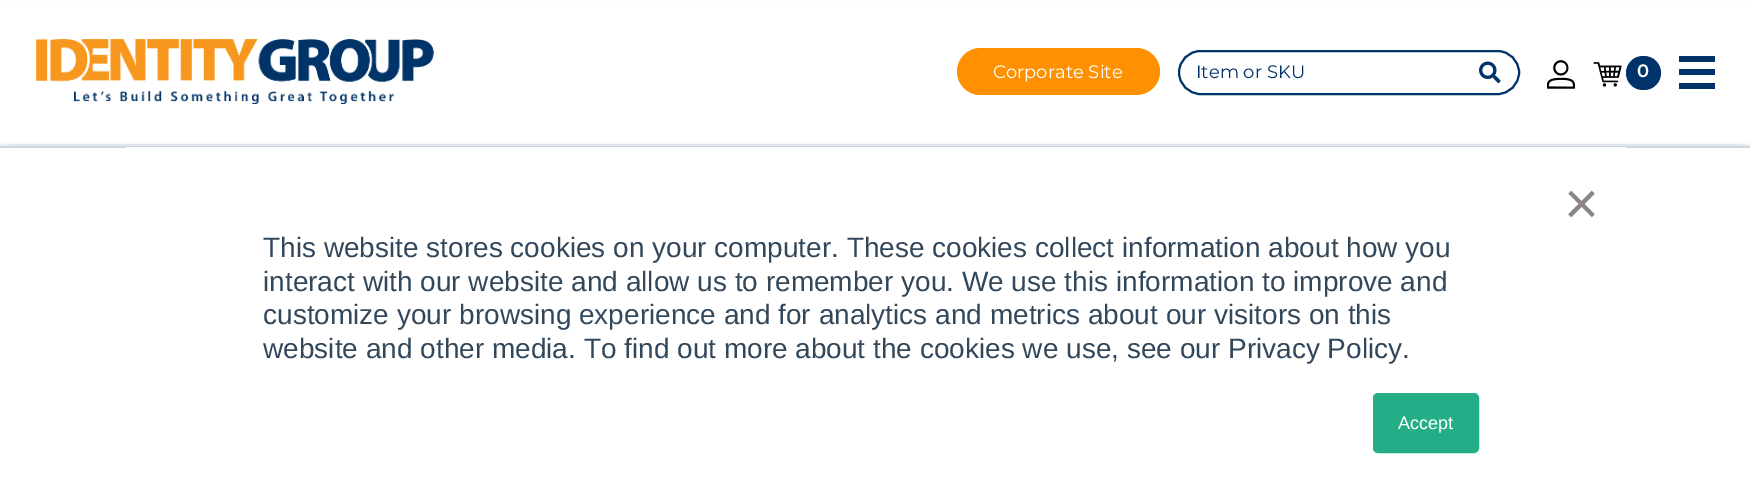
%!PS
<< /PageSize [1750 491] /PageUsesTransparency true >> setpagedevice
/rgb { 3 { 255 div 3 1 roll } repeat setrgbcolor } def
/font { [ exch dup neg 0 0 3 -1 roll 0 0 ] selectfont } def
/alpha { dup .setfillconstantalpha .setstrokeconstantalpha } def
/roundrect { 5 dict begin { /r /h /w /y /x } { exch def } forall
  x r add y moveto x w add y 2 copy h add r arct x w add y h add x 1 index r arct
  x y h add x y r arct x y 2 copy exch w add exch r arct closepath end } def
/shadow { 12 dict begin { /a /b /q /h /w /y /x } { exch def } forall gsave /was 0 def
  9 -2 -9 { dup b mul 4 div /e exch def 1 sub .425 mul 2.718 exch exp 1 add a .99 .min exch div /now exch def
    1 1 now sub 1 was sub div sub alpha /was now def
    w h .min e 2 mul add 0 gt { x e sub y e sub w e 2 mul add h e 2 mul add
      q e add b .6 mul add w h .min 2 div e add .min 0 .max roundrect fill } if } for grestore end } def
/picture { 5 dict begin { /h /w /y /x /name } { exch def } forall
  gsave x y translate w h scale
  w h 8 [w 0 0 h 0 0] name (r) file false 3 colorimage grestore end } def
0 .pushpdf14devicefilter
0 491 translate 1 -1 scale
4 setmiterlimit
255 255 255 rgb
0 0 1750 491 rectfill
0 0 0 rgb
11 26 1729 123 0 12 0.25 shadow
255 255 255 rgb
0 5 1750 139 rectfill
(img/1.rgb) 36 39 398 65 picture
255 145 0 rgb
957 48 203 47 23.5 roundrect fill
0 51 105 rgb
2 setlinewidth
1179 51 340 43 21.5 roundrect stroke
(img/2.rgb) 1479 61 22 23 picture
(img/3.rgb) 1547 60 28 29 picture
(img/4.rgb) 1593 62 29 25 picture
1626 56 35 34 17 roundrect fill
[
  [1679 56 36 6 0 51 105]
  [1679 69 36 6 0 51 105]
  [1679 83 36 6 0 51 105]
] { aload pop rgb rectfill } forall
234 240 246 rgb
0 144 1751 347 0 2 1 shadow
[
  [0 148 1750 343 255 255 255]
  [0 146 1750 2 203 214 226]
  [126 147 1500 1 255 255 255]
] { aload pop rgb rectfill } forall
36 174 135 rgb
1374 394 104 58 4 roundrect gsave fill grestore
stroke
/Montserrat-Regular 18 font
255 255 255 rgb
993 78 moveto (Corporate Site) show
0 51 105 rgb
1196 78 moveto (Item or SKU) show
/Montserrat-SemiBold 18 font
255 255 255 rgb
1637 77 moveto (0) show
/LiberationSans-Regular 60 font
139 133 137 rgb
1564 224 moveto (×) show
/LiberationSans-Regular 28 font
51 71 91 rgb
[
  [(This website stores cookies on your computer. These cookies collect information about how you) 263 257]
  [(interact with our website and allow us to remember you. We use this information to improve and) 263 291]
  [(customize your browsing experience and for analytics and metrics about our visitors on this) 263 324]
  [(website and other media. To find out more about the cookies we use, see our Privacy Policy.) 263 358]
] { aload pop moveto show } forall
/LiberationSans-Regular 18 font
255 255 255 rgb
1398 429 moveto (Accept) show
.poppdf14devicefilter showpage
